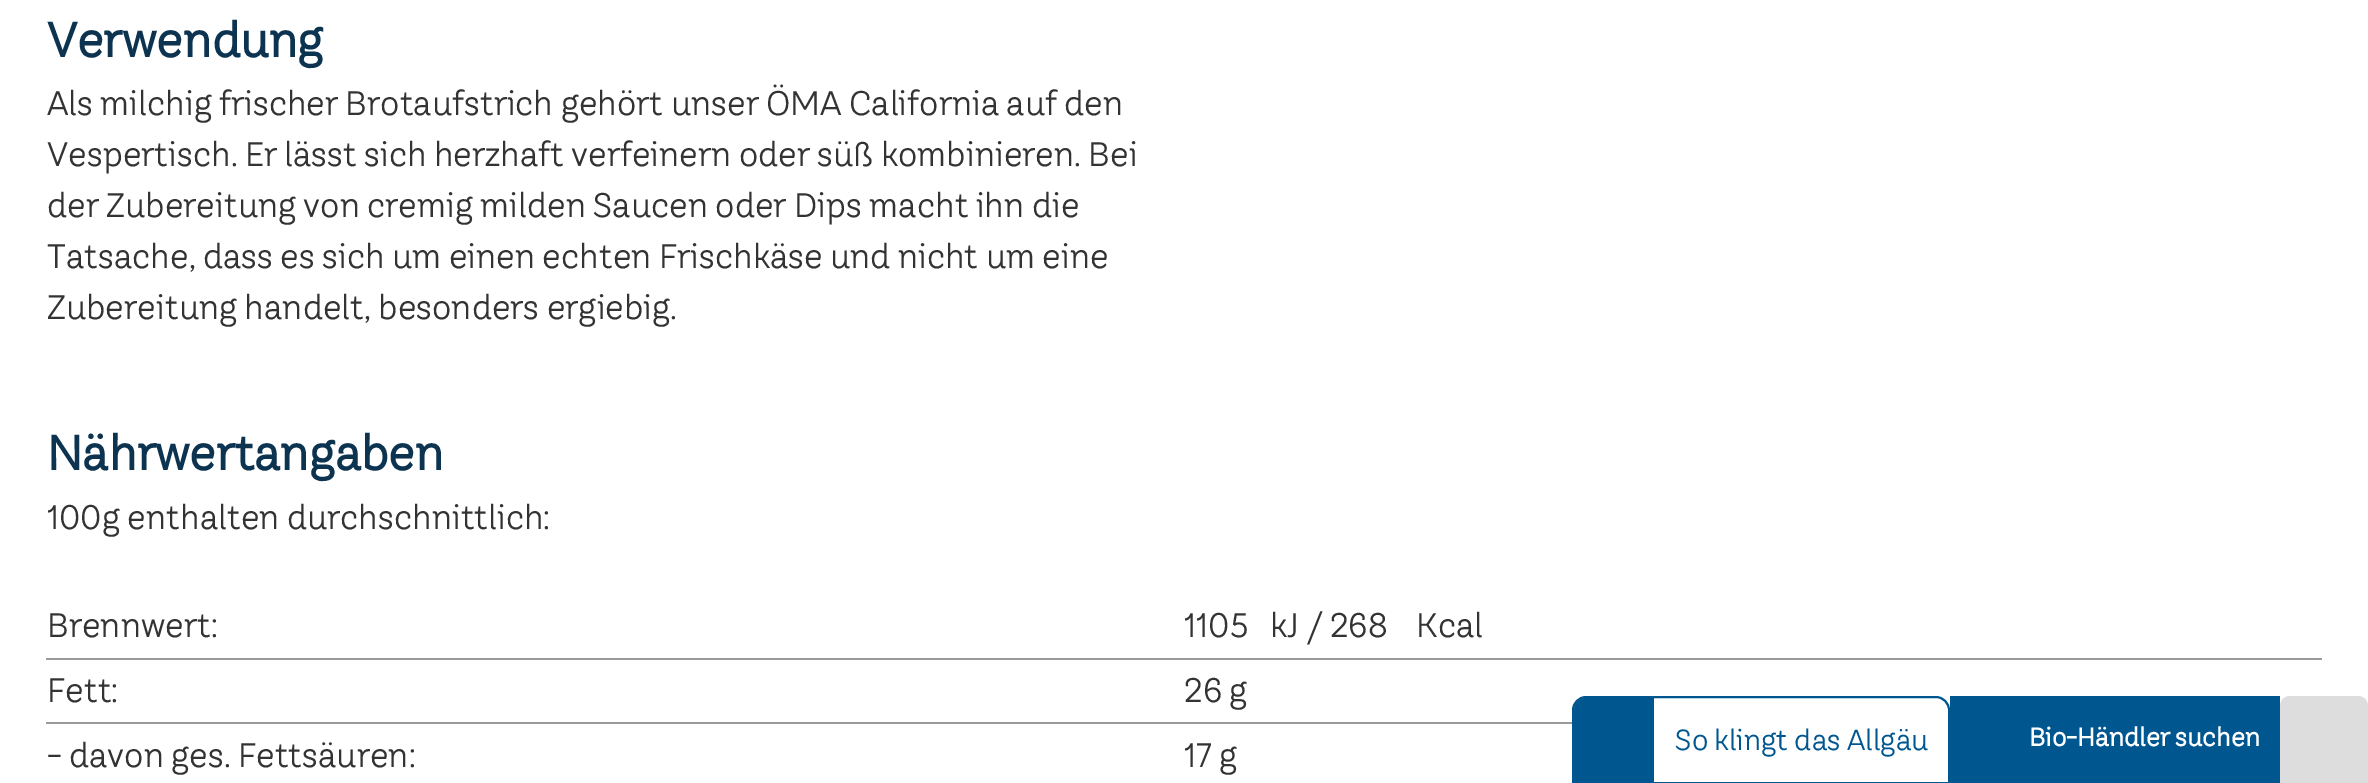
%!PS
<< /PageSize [2368 783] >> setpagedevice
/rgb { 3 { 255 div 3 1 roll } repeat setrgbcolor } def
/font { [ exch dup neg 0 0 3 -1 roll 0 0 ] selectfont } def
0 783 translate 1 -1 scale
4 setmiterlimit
255 255 255 rgb
0 0 2368 783 rectfill
153 153 153 rgb
46 658 2276 2 rectfill
46 722 1526 2 rectfill
0 86 143 rgb
2 setlinewidth
1586 697 moveto 1936 697 lineto 1943 697 1949 703 1949 710 curveto 1949 783 lineto 1573 783 lineto 1573 710 lineto 1573 703 1579 697 1586 697 curveto closepath stroke
1586 698 moveto 1654 698 lineto 1654 782 lineto 1574 782 lineto 1574 710 lineto 1574 703.5 1579.5 698 1586 698 curveto closepath fill
1950 696 330 87 rectfill
221 221 221 rgb
2290 696 moveto 2358 696 lineto 2363.5 696 2368 700.5 2368 706 curveto 2368 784 lineto 2280 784 lineto 2280 706 lineto 2280 700.5 2284.5 696 2290 696 curveto closepath fill
/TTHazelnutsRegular-Bold 48.25 font
12 52 81 rgb
47 57 moveto (Verwendung) show
/TTHazelnutsRegular-Regular 34 font
51 51 51 rgb
[
  [(Als milchig frischer Brotaufstrich gehört unser ÖMA California auf den) 47 115]
  [(Vespertisch. Er lässt sich herzhaft verfeinern oder süß kombinieren. Bei) 47 166]
  [(der Zubereitung von cremig milden Saucen oder Dips macht ihn die) 47 217]
  [(Tatsache, dass es sich um einen echten Frischkäse und nicht um eine) 47 268]
  [(Zubereitung handelt, besonders ergiebig.) 47 319]
] { aload pop moveto show } forall
/TTHazelnutsRegular-Bold 48.25 font
12 52 81 rgb
47 470 moveto (Nährwertangaben) show
/TTHazelnutsRegular-Regular 34 font
51 51 51 rgb
[
  [(100g enthalten durchschnittlich:) 47 529]
  [(Brennwert:) 47 637]
  [(1105   kJ / 268    Kcal) 1184 637]
  [(Fett:) 47 702]
  [(26 g) 1184 702]
  [(- davon ges. Fettsäuren:) 47 767]
  [(17 g) 1184 767]
] { aload pop moveto show } forall
/TTHazelnutsRegular-Regular 29 font
0 86 143 rgb
1675 750 moveto (So klingt das Allgäu) show
/TTHazelnutsRegular-Bold 25.5 font
255 255 255 rgb
2029 746 moveto (Bio-Händler suchen) show
showpage
